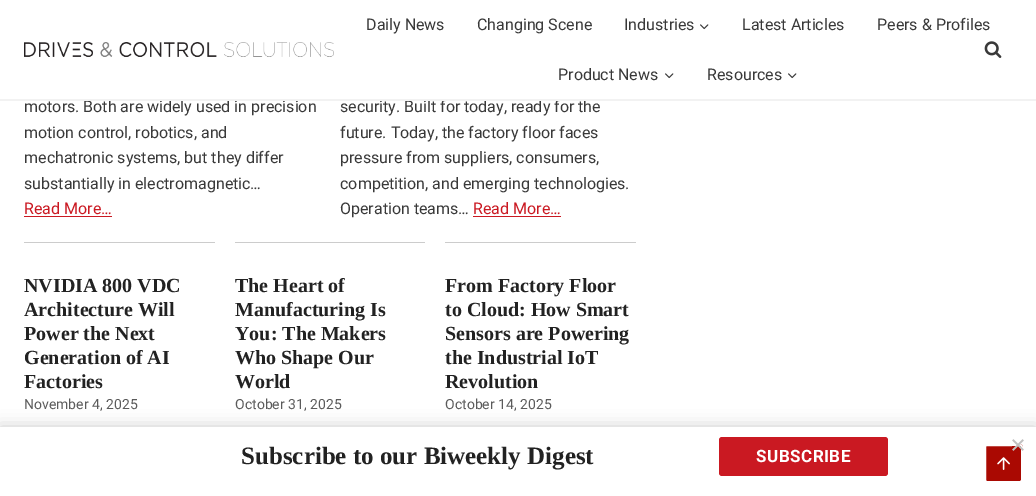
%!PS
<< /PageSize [1036 496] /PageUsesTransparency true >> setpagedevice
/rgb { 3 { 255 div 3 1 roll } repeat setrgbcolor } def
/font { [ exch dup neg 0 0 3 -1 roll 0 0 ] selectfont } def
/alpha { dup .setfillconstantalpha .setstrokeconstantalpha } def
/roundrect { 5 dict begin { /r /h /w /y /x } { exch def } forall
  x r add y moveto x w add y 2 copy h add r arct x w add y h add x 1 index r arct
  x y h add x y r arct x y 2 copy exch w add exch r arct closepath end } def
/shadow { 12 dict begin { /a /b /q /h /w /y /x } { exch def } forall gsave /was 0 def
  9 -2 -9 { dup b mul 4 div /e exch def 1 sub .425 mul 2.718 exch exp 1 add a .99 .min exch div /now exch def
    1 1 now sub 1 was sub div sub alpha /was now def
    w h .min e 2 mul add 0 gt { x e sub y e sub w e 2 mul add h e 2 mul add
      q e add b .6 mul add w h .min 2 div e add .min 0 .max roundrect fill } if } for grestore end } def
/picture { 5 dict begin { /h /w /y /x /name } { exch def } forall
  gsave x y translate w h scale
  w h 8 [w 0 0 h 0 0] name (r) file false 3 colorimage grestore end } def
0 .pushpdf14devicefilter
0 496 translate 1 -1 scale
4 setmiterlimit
255 255 255 rgb
0 0 1036 496 rectfill
(img/1.rgb) 24 42 310 15 picture
(img/2.rgb) 700 24 9 6 picture
(img/2.rgb) 665 73 9 6 picture
(img/2.rgb) 788 73 9 6 picture
(img/3.rgb) 984 41 18 17 picture
[
  [24 216 88 1 202 25 34]
  [473 216 88 1 202 25 34]
  [24 242 191 1 204 204 204]
  [235 242 190 1 204 204 204]
  [445 242 191 1 204 204 204]
] { aload pop rgb rectfill } forall
0 0 0 rgb
0 427 1036 69 0 8 0.2 shadow
255 255 255 rgb
0 427 1036 69 rectfill
202 25 34 rgb
719 437 169 39 3 roundrect fill
170 9 2 rgb
985 445 37 37 2 roundrect gsave fill grestore
255 255 255 rgb
2 setlinewidth
stroke
(img/4.rgb) 1012 439 12 12 picture
(img/5.rgb) 997 457 13 13 picture
/Roboto-Regular 16 font
57 57 57 rgb
[
  [(Daily News) 366 30]
  [(Changing Scene) 477 30]
  [(Industries) 624 30]
  [(Latest Articles) 742 30]
  [(Peers & Profiles) 877 30]
  [(Product News) 558 80]
  [(Resources) 707 80]
  [(motors. Both are widely used in precision) 24 112]
  [(motion control, robotics, and) 24 138]
  [(mechatronic systems, but they differ) 24 163]
  [(substantially in electromagnetic…) 24 189]
] { aload pop moveto show } forall
202 25 34 rgb
24 214 moveto (Read More…) show
57 57 57 rgb
340 112 moveto (security. Built for today, ready for the) show
242 242 242 rgb
0 99 1036 2 rectfill
57 57 57 rgb
[
  [(future. Today, the factory floor faces) 340 138]
  [(pressure from suppliers, consumers,) 340 163]
  [(competition, and emerging technologies.) 340 189]
  [(Operation teams…) 340 214]
] { aload pop moveto show } forall
202 25 34 rgb
473 214 moveto (Read More…) show
/LiberationSerif-Bold 20 font
34 34 34 rgb
[
  [(NVIDIA 800 VDC) 24 292]
  [(Architecture Will) 24 316]
  [(Power the Next) 24 340]
  [(Generation of AI) 24 364]
  [(Factories) 24 388]
] { aload pop moveto show } forall
/Roboto-Regular 14 font
91 91 91 rgb
24 409 moveto (November 4, 2025) show
/LiberationSerif-Bold 20 font
34 34 34 rgb
[
  [(The Heart of) 235 292]
  [(Manufacturing Is) 235 316]
  [(You: The Makers) 235 340]
  [(Who Shape Our) 235 364]
  [(World) 235 388]
] { aload pop moveto show } forall
/Roboto-Regular 14 font
91 91 91 rgb
235 409 moveto (October 31, 2025) show
/LiberationSerif-Bold 20 font
34 34 34 rgb
[
  [(From Factory Floor) 445 292]
  [(to Cloud: How Smart) 445 316]
  [(Sensors are Powering) 445 340]
  [(the Industrial IoT) 445 364]
  [(Revolution) 445 388]
] { aload pop moveto show } forall
/Roboto-Regular 14 font
91 91 91 rgb
445 409 moveto (October 14, 2025) show
/LiberationSerif-Bold 25 font
34 34 34 rgb
241 464 moveto (Subscribe to our Biweekly Digest) show
/Roboto-Bold 17 font
255 255 255 rgb
756 462 moveto 0.5 0 (SUBSCRIBE) ashow
.poppdf14devicefilter showpage
